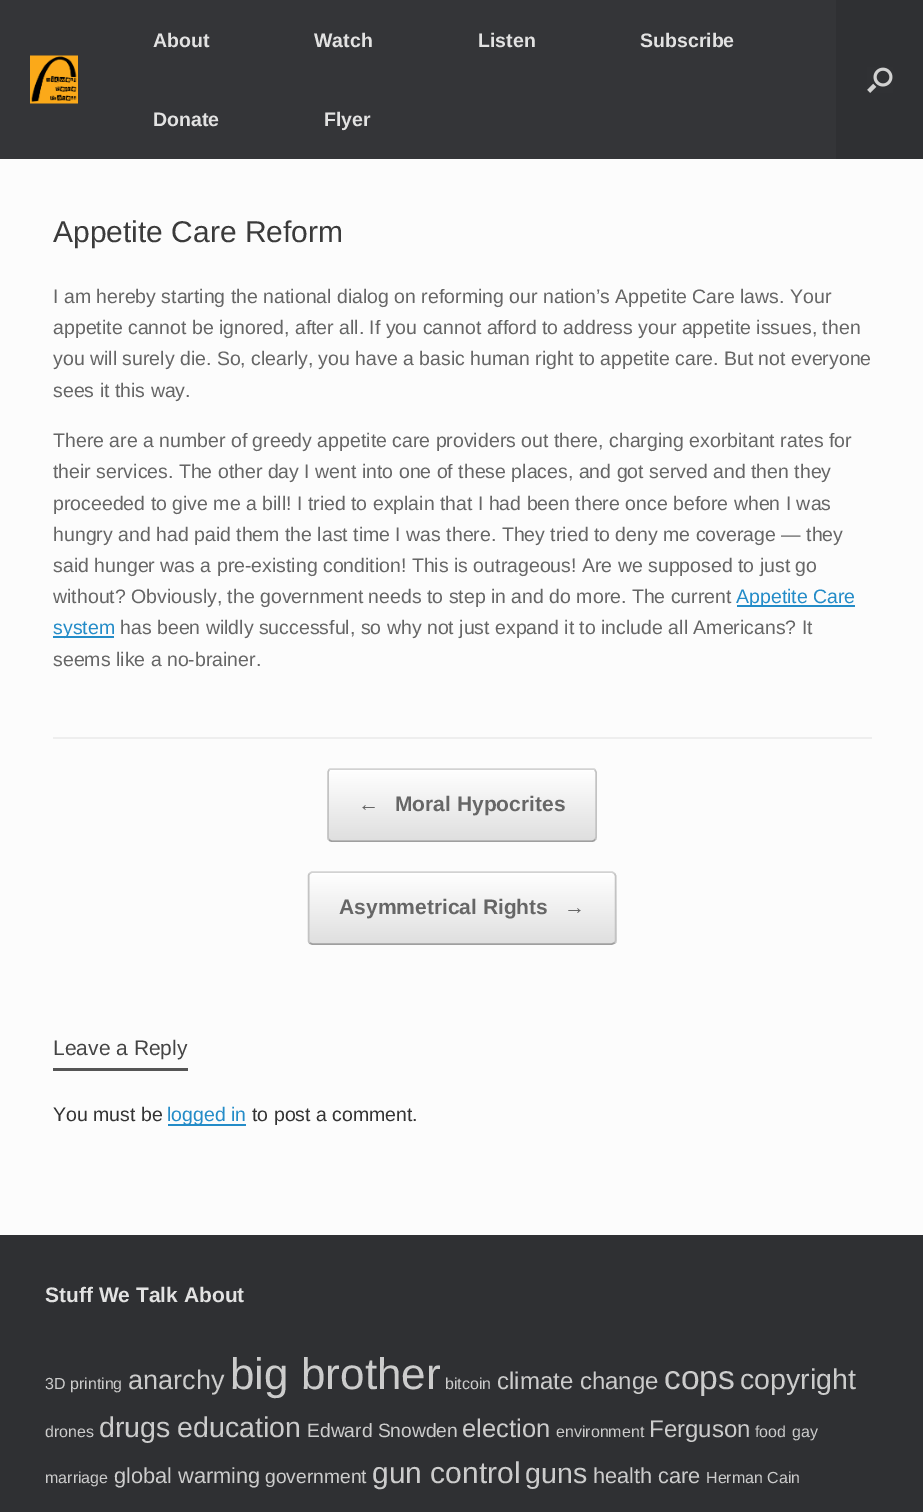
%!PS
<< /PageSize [923 1512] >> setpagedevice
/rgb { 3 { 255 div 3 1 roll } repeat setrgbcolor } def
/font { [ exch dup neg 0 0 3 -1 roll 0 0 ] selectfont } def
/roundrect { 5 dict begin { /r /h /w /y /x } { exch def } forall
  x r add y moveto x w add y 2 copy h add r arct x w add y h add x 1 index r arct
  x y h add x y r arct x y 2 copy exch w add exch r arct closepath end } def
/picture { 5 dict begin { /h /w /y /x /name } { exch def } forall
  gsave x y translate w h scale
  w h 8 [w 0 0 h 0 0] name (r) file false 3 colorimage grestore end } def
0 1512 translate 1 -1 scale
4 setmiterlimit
47 48 51 rgb
0 0 923 1512 rectfill
52 53 56 rgb
0 0 836 159 rectfill
(img/1.rgb) 30 55 48 49 picture
(img/2.rgb) 867 67 26 26 picture
[
  [0 159 923 1076 252 252 252]
  [53 737 819 2 238 238 238]
  [737 605 118 2 36 140 200]
  [53 636 61 2 36 140 200]
] { aload pop rgb rectfill } forall
gsave
327 768 270 74 5 roundrect clip newpath
gsave 327 770 moveto 597 770 lineto 597 840 lineto 327 840 lineto closepath clip newpath
<< /ShadingType 2 /ColorSpace /DeviceRGB /Coords [329 840 329 770] /Extend [true true] /Function << /FunctionType 2 /Domain [0 1] /C0 [0.875 0.875 0.875] /C1 [1 1 1] /N 1 >> >> shfill grestore
gsave 327 840 moveto 597 840 lineto 597 842 lineto 327 842 lineto closepath clip newpath
<< /ShadingType 2 /ColorSpace /DeviceRGB /Coords [329 911 329 840] /Extend [true true] /Function << /FunctionType 2 /Domain [0 1] /C0 [0.875 0.875 0.875] /C1 [1 1 1] /N 1 >> >> shfill grestore
grestore
210 210 210 rgb
1.5 setlinewidth
329 770 moveto 329.5 769 330.5 769 331.5 769 curveto 592.5 769 lineto 593.5 769 594.5 769 595 770 curveto stroke
195 195 195 rgb
595 770 moveto 596 772 lineto 596 837.5 lineto 595 839.5 lineto stroke
159 159 159 rgb
595 839.5 moveto 594.5 840.5 593.5 841 592.5 841 curveto 331.5 841 lineto 330.5 841 329.5 840.5 329 839.5 curveto stroke
195 195 195 rgb
329 839.5 moveto 328 837.5 lineto 328 772 lineto 329 770 lineto stroke
gsave
308 872 309 73 5 roundrect clip newpath
gsave 308 873 moveto 617 873 lineto 617 944 lineto 308 944 lineto closepath clip newpath
<< /ShadingType 2 /ColorSpace /DeviceRGB /Coords [309 944 309 873] /Extend [true true] /Function << /FunctionType 2 /Domain [0 1] /C0 [0.875 0.875 0.875] /C1 [1 1 1] /N 1 >> >> shfill grestore
gsave 308 944 moveto 617 944 lineto 617 945 lineto 308 945 lineto closepath clip newpath
<< /ShadingType 2 /ColorSpace /DeviceRGB /Coords [309 1014 309 944] /Extend [true true] /Function << /FunctionType 2 /Domain [0 1] /C0 [0.875 0.875 0.875] /C1 [1 1 1] /N 1 >> >> shfill grestore
grestore
210 210 210 rgb
309.5 873.5 moveto 312 872 lineto 612 872 lineto 614.5 873.5 lineto stroke
195 195 195 rgb
614.5 873.5 moveto 615.5 875.5 lineto 615.5 941 lineto 614.5 943 lineto stroke
159 159 159 rgb
614.5 943 moveto 612 944 lineto 312 944 lineto 309.5 943 lineto stroke
195 195 195 rgb
309.5 943 moveto 308.5 941 lineto 308.5 875.5 lineto 309.5 873.5 lineto stroke
85 85 85 rgb
53 1068 135 3 rectfill
36 140 200 rgb
168 1124 78 2 rectfill
/LiberationSans-Bold 19.5 font
226 226 226 rgb
[
  [(About) 153 47]
  [(Watch) 314 47]
  [(Listen) 478 47]
  [(Subscribe) 640 47]
  [(Donate) 153 126]
  [(Flyer) 324 126]
] { aload pop moveto show } forall
/LiberationSans-Regular 30 font
59 59 59 rgb
53 242 moveto (Appetite Care Reform) show
/LiberationSans-Regular 19.5 font
102 102 102 rgb
[
  [(I am hereby starting the national dialog on reforming our nation’s Appetite Care laws. Your) 53 303]
  [(appetite cannot be ignored, after all. If you cannot afford to address your appetite issues, then) 53 334]
  [(you will surely die. So, clearly, you have a basic human right to appetite care. But not everyone) 53 365]
  [(sees it this way.) 53 397]
  [(There are a number of greedy appetite care providers out there, charging exorbitant rates for) 53 447]
  [(their services. The other day I went into one of these places, and got served and then they) 53 478]
  [(proceeded to give me a bill! I tried to explain that I had been there once before when I was) 53 510]
  [(hungry and had paid them the last time I was there. They tried to deny me coverage — they) 53 541]
  [(said hunger was a pre-existing condition! This is outrageous! Are we supposed to just go) 53 572]
  [(without? Obviously, the government needs to step in and do more. The current) 53 603]
] { aload pop moveto show } forall
36 140 200 rgb
736 603 moveto (Appetite Care) show
53 634 moveto (system) show
102 102 102 rgb
120 634 moveto (has been wildly successful, so why not just expand it to include all Americans? It) show
53 666 moveto (seems like a no-brainer.) show
/LiberationSans-Bold 21 font
[
  [(←) 358 811]
  [(Moral Hypocrites) 395 811]
  [(Asymmetrical Rights) 339 914]
  [(→) 564 914]
] { aload pop moveto show } forall
/LiberationSans-Regular 21 font
68 68 68 rgb
53 1055 moveto (Leave a Reply) show
/LiberationSans-Regular 19.5 font
51 51 51 rgb
53 1121 moveto (You must be) show
36 140 200 rgb
167 1121 moveto (logged in) show
51 51 51 rgb
252 1121 moveto (to post a comment.) show
/LiberationSans-Bold 21 font
226 226 226 rgb
45 1302 moveto (Stuff We Talk About) show
/LiberationSans-Regular 16 font
204 204 204 rgb
45 1389 moveto (3D printing) show
/LiberationSans-Regular 27 font
128 1389 moveto (anarchy) show
/LiberationSans-Regular 44 font
230 1389 moveto (big brother) show
/LiberationSans-Regular 16 font
445 1389 moveto (bitcoin) show
/LiberationSans-Regular 24 font
497 1389 moveto (climate change) show
/LiberationSans-Regular 33.5 font
664 1389 moveto (cops) show
/LiberationSans-Regular 28.5 font
740 1389 moveto (copyright) show
/LiberationSans-Regular 16 font
45 1437 moveto (drones) show
/LiberationSans-Regular 28.5 font
99 1437 moveto (drugs) show
177 1437 moveto (education) show
/LiberationSans-Regular 19.25 font
307 1437 moveto (Edward Snowden) show
/LiberationSans-Regular 25.5 font
462 1437 moveto (election) show
/LiberationSans-Regular 16 font
556 1437 moveto (environment) show
/LiberationSans-Regular 24 font
649 1437 moveto (Ferguson) show
/LiberationSans-Regular 16 font
[
  [(food) 755 1437]
  [(gay) 792 1437]
  [(marriage) 45 1483]
] { aload pop moveto show } forall
/LiberationSans-Regular 21.75 font
114 1483 moveto (global warming) show
/LiberationSans-Regular 19.25 font
265 1483 moveto (government) show
/LiberationSans-Regular 30 font
372 1483 moveto (gun control) show
/LiberationSans-Regular 28.5 font
525 1483 moveto (guns) show
/LiberationSans-Regular 21.75 font
593 1483 moveto (health care) show
/LiberationSans-Regular 16 font
706 1483 moveto (Herman Cain) show
showpage
